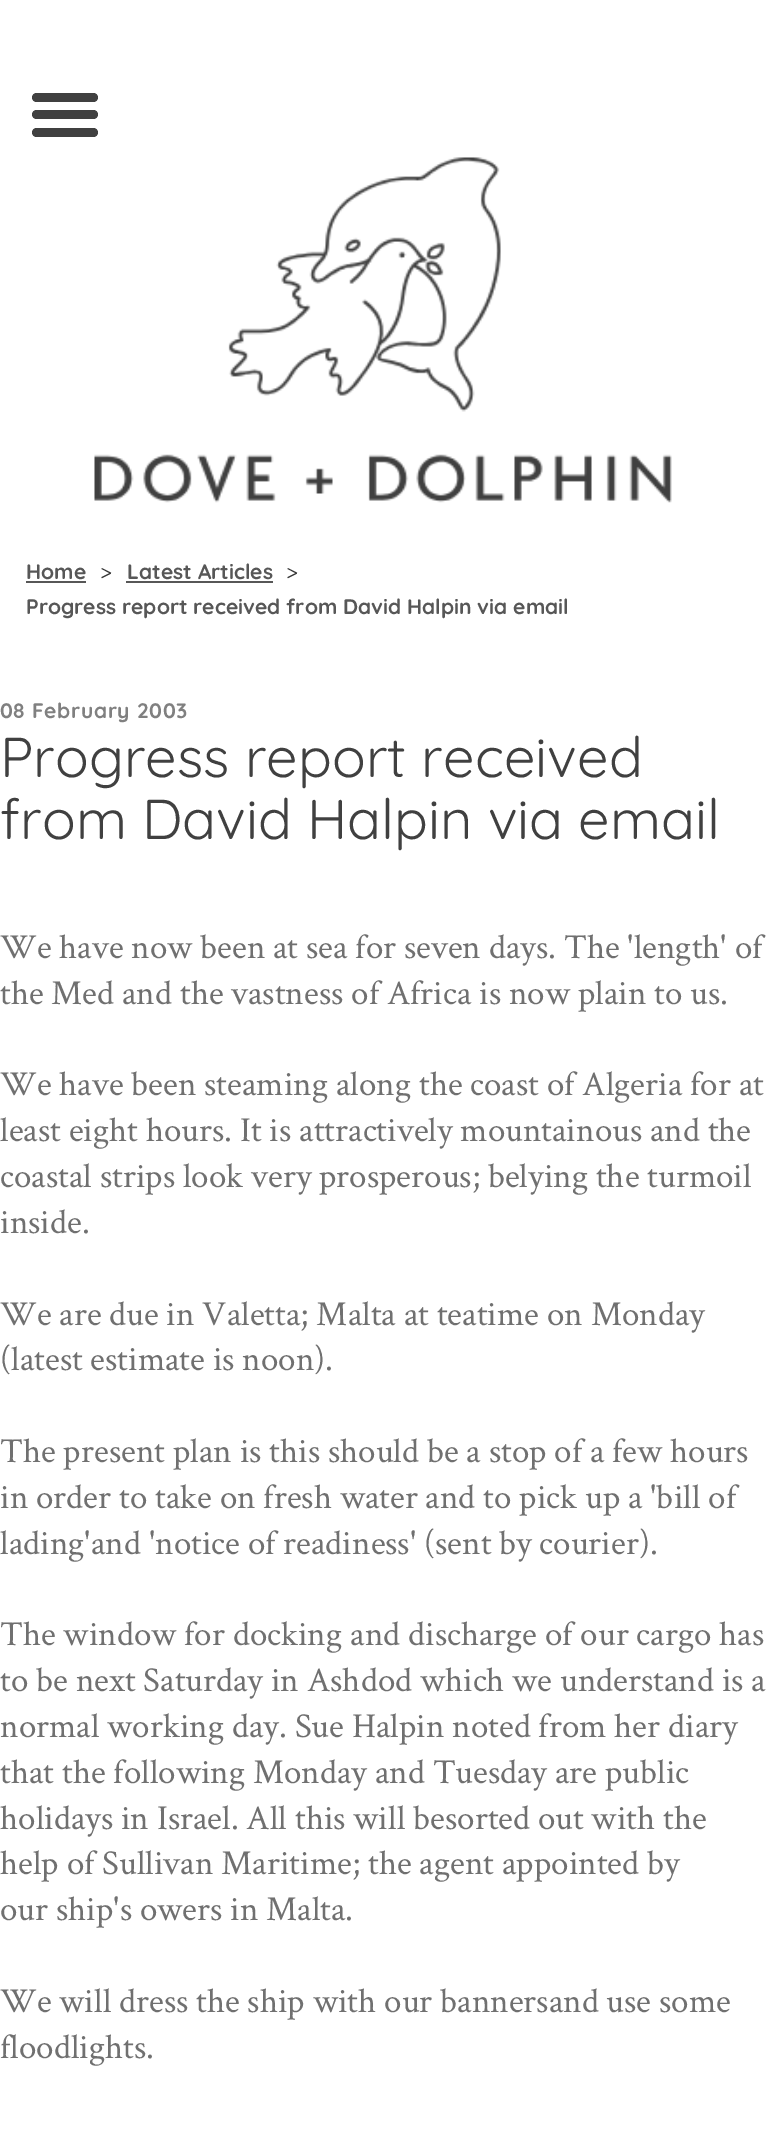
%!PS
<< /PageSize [766 2135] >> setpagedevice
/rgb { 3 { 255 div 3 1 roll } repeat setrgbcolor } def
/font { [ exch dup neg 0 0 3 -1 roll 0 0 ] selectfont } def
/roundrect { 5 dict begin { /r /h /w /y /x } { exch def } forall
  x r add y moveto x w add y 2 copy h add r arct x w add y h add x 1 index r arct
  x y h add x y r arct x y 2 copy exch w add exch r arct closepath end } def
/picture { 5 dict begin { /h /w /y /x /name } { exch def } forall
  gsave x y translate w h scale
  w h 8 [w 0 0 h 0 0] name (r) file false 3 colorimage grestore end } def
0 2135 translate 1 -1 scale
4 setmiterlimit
255 255 255 rgb
0 0 766 2135 rectfill
64 64 64 rgb
32 110 66 9 4.5 roundrect fill
32 93 66 9 4.5 roundrect fill
32 128 66 9 4.5 roundrect fill
(img/1.rgb) 94 157 578 346 picture
87 87 87 rgb
26 581 60 2 rectfill
126 581 147 2 rectfill
/Quicksand-Bold 21 font
26 579 moveto (Home) show
/CrimsonText-Regular 24 font
51 51 51 rgb
100 578 moveto (>) show
/Quicksand-Bold 21 font
87 87 87 rgb
127 579 moveto (Latest Articles) show
/CrimsonText-Regular 24 font
51 51 51 rgb
286 578 moveto (>) show
/Quicksand-Bold 21 font
87 87 87 rgb
26 614 moveto (Progress report received from David Halpin via email) show
128 128 128 rgb
0 718 moveto 0.6 0 (08 February 2003) ashow
/Quicksand-Regular 56 font
64 64 64 rgb
0 777 moveto (Progress report received) show
0 839 moveto (from David Halpin via email) show
/CrimsonText-Regular 35 font
112 112 112 rgb
[
  [(We have now been at sea for seven days. The 'length' of) 0 958]
  [(the Med and the vastness of Africa is now plain to us.) 0 1004]
  [(We have been steaming along the coast of Algeria for at) 0 1095]
  [(least eight hours. It is attractively mountainous and the) 0 1141]
  [(coastal strips look very prosperous; belying the turmoil) 0 1187]
  [(inside.) 0 1233]
  [(We are due in Valetta; Malta at teatime on Monday) 0 1325]
  [(\(latest estimate is noon\).) 0 1370]
  [(The present plan is this should be a stop of a few hours) 0 1462]
  [(in order to take on fresh water and to pick up a 'bill of) 0 1508]
  [(lading'and 'notice of readiness' \(sent by courier\).) 0 1554]
  [(The window for docking and discharge of our cargo has) 0 1645]
  [(to be next Saturday in Ashdod which we understand is a) 0 1691]
  [(normal working day. Sue Halpin noted from her diary) 0 1737]
  [(that the following Monday and Tuesday are public) 0 1783]
  [(holidays in Israel. All this will besorted out with the) 0 1829]
  [(help of Sullivan Maritime; the agent appointed by) 0 1874]
  [(our ship's owers in Malta.) 0 1920]
  [(We will dress the ship with our bannersand use some) 0 2012]
  [(floodlights.) 0 2058]
] { aload pop moveto show } forall
showpage
